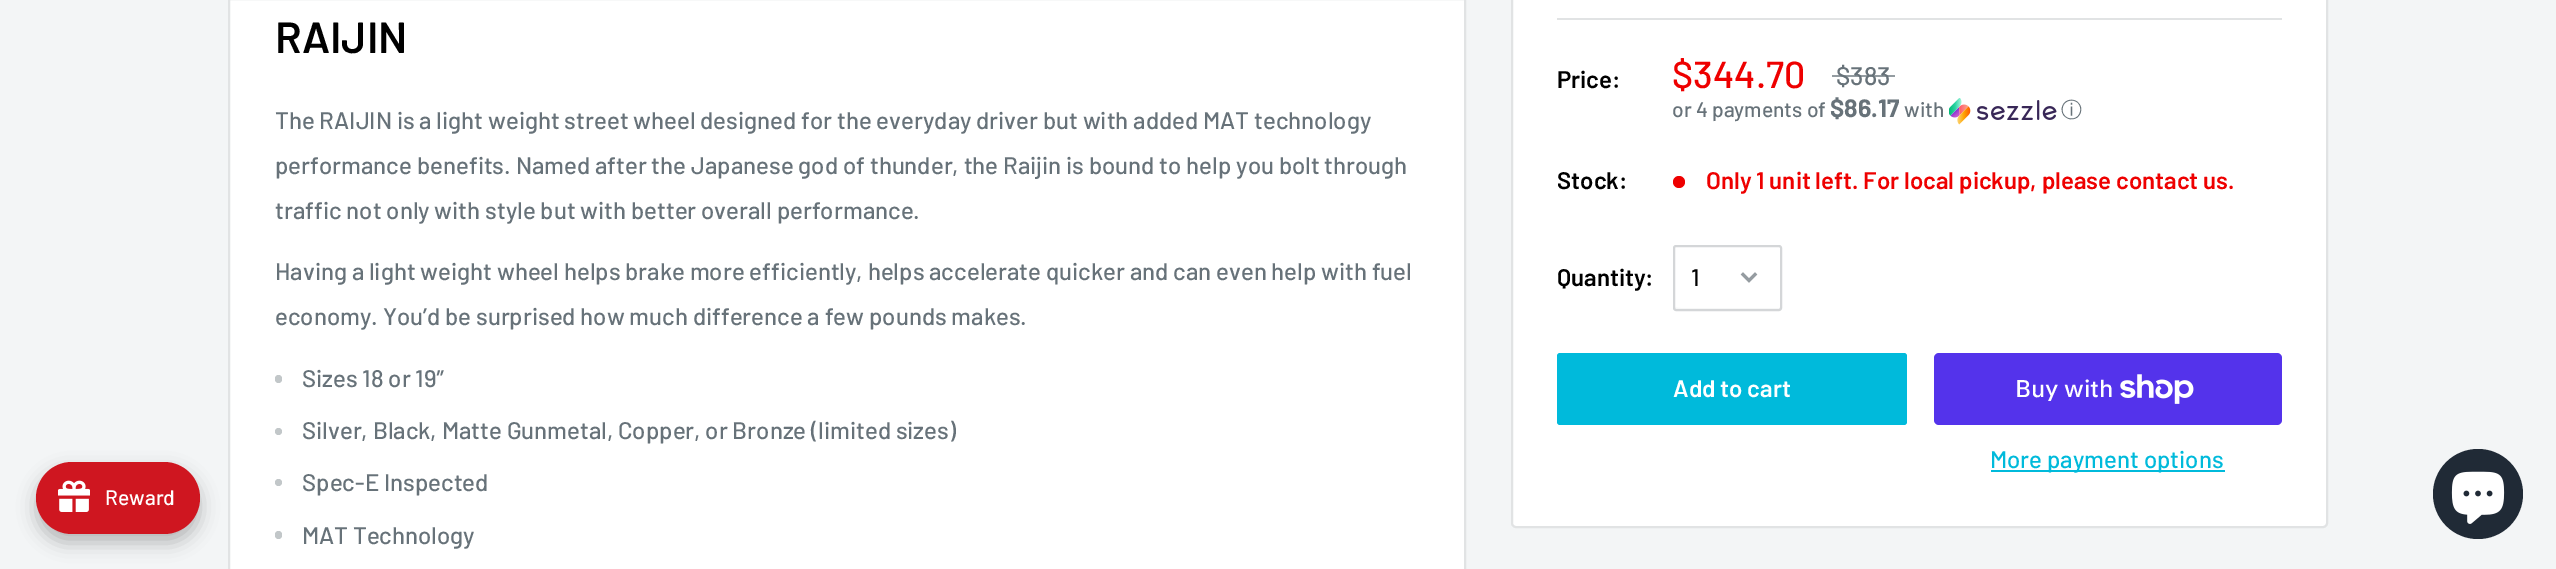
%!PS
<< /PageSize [2556 569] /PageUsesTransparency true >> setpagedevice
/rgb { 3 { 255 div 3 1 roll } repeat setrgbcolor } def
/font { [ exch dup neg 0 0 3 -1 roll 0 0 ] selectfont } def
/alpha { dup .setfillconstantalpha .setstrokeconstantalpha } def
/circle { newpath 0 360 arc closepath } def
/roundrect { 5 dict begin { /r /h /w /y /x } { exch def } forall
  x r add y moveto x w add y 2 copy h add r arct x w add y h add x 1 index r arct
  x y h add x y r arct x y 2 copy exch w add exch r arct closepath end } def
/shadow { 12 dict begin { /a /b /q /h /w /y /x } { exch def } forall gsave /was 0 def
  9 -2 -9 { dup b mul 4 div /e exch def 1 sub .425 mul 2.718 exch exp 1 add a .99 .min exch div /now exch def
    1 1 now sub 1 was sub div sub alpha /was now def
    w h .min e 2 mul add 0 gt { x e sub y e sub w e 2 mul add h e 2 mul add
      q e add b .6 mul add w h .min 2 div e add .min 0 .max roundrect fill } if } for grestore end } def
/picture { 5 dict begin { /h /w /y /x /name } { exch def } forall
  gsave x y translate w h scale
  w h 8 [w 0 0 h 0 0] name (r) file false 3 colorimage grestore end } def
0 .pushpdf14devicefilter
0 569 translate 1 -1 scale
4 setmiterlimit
243 245 246 rgb
0 0 2556 569 rectfill
0 0 0 rgb
36 471 164 72 36 9 0.25 shadow
207 22 32 rgb
36 462 164 72 36 roundrect fill
(img/1.rgb) 58 480 32 32 picture
255 255 255 rgb
229 -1 moveto 1465 -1 lineto 1465 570 lineto 229 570 lineto closepath gsave fill grestore
225 227 228 rgb
2 setlinewidth
stroke
194 199 201 rgb
275 375 7 8 3.5 roundrect fill
278.5 431.5 3.5 circle fill
278.5 482.5 3.5 circle fill
275 531 7 8 3.5 roundrect fill
255 255 255 rgb
1512 -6 815 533 4 roundrect gsave fill grestore
225 227 228 rgb
stroke
1557 18 725 2 rectfill
(img/2.rgb) 1949 98 108 27 picture
238 0 0 rgb
1679 182 6 circle fill
246 247 247 rgb
1674 307 moveto 1674 313 1688 309 1693 309 curveto 1762 309 lineto 1787 309 1781 314 1781 288 curveto 1781 247 lineto 1780 266 lineto 1780 307 lineto 1779 308 lineto 1707 308 lineto 1706 308 1677 309 1674 307 curveto closepath fill
212 214 216 rgb
1674 246 107 64 2 roundrect stroke
149 156 161 rgb
3 setlinewidth
2 setlinecap
1755 274.5 moveto 1749 280.5 lineto 1743 274.5 lineto stroke
0 186 219 rgb
1557 353 350 72 3 roundrect fill
84 51 235 rgb
1934 353 348 72 5 roundrect fill
(img/3.rgb) 2120 374 74 30 picture
0 186 219 rgb
1991 470 234 2 rectfill
32 42 54 rgb
2478 494 45 circle fill
(img/4.rgb) 2451 471 54 53 picture
/Barlow-Medium 21 font
255 255 255 rgb
105 505 moveto (Reward) show
/Barlow-SemiBold 43.5 font
0 0 0 rgb
275 53 moveto (RAIJIN) show
/Barlow-Medium 24 font
103 114 121 rgb
[
  [(The RAIJIN is a light weight street wheel designed for the everyday driver but with added MAT technology) 275 129]
  [(performance benefits. Named after the Japanese god of thunder, the Raijin is bound to help you bolt through) 275 174]
  [(traffic not only with style but with better overall performance.) 275 219]
  [(Having a light weight wheel helps brake more efficiently, helps accelerate quicker and can even help with fuel) 275 280]
  [(economy. You’d be surprised how much difference a few pounds makes.) 275 325]
  [(Sizes 18 or 19″) 302 387]
  [(Silver, Black, Matte Gunmetal, Copper, or Bronze \(limited sizes\)) 302 439]
  [(Spec-E Inspected) 302 491]
  [(MAT Technology) 302 544]
] { aload pop moveto show } forall
/Barlow-SemiBold 24 font
0 0 0 rgb
1557 88 moveto (Price:) show
/Barlow-Medium 37.5 font
238 0 0 rgb
1672 88 moveto ($344.70) show
/Barlow-Medium 25.5 font
103 114 121 rgb
1836 85 moveto ($383) show
0.7 alpha
1832 75 63 2 rectfill
/Barlow-Medium 21 font
1 alpha
1672 117 moveto (or 4 payments of) show
/Barlow-Bold 25 font
1830 117 moveto ($86.17) show
/Barlow-Medium 21 font
1904 117 moveto (with) show
/WenQuanYiZenHei-Medium 21 font
2061 117 moveto (ⓘ) show
/Barlow-SemiBold 24 font
0 0 0 rgb
1557 189 moveto (Stock:) show
238 0 0 rgb
1706 189 moveto (Only 1 unit left. For local pickup, please contact us.) show
0 0 0 rgb
1557 286 moveto (Quantity:) show
/Barlow-Medium 24 font
1691 286 moveto (1) show
/Barlow-SemiBold 24 font
255 255 255 rgb
1673 397 moveto (Add to cart) show
/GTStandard-Medium 24 font
2015 397 moveto (Buy with) show
/Barlow-Medium 24 font
0 186 219 rgb
1990 468 moveto (More payment options) show
.poppdf14devicefilter showpage
